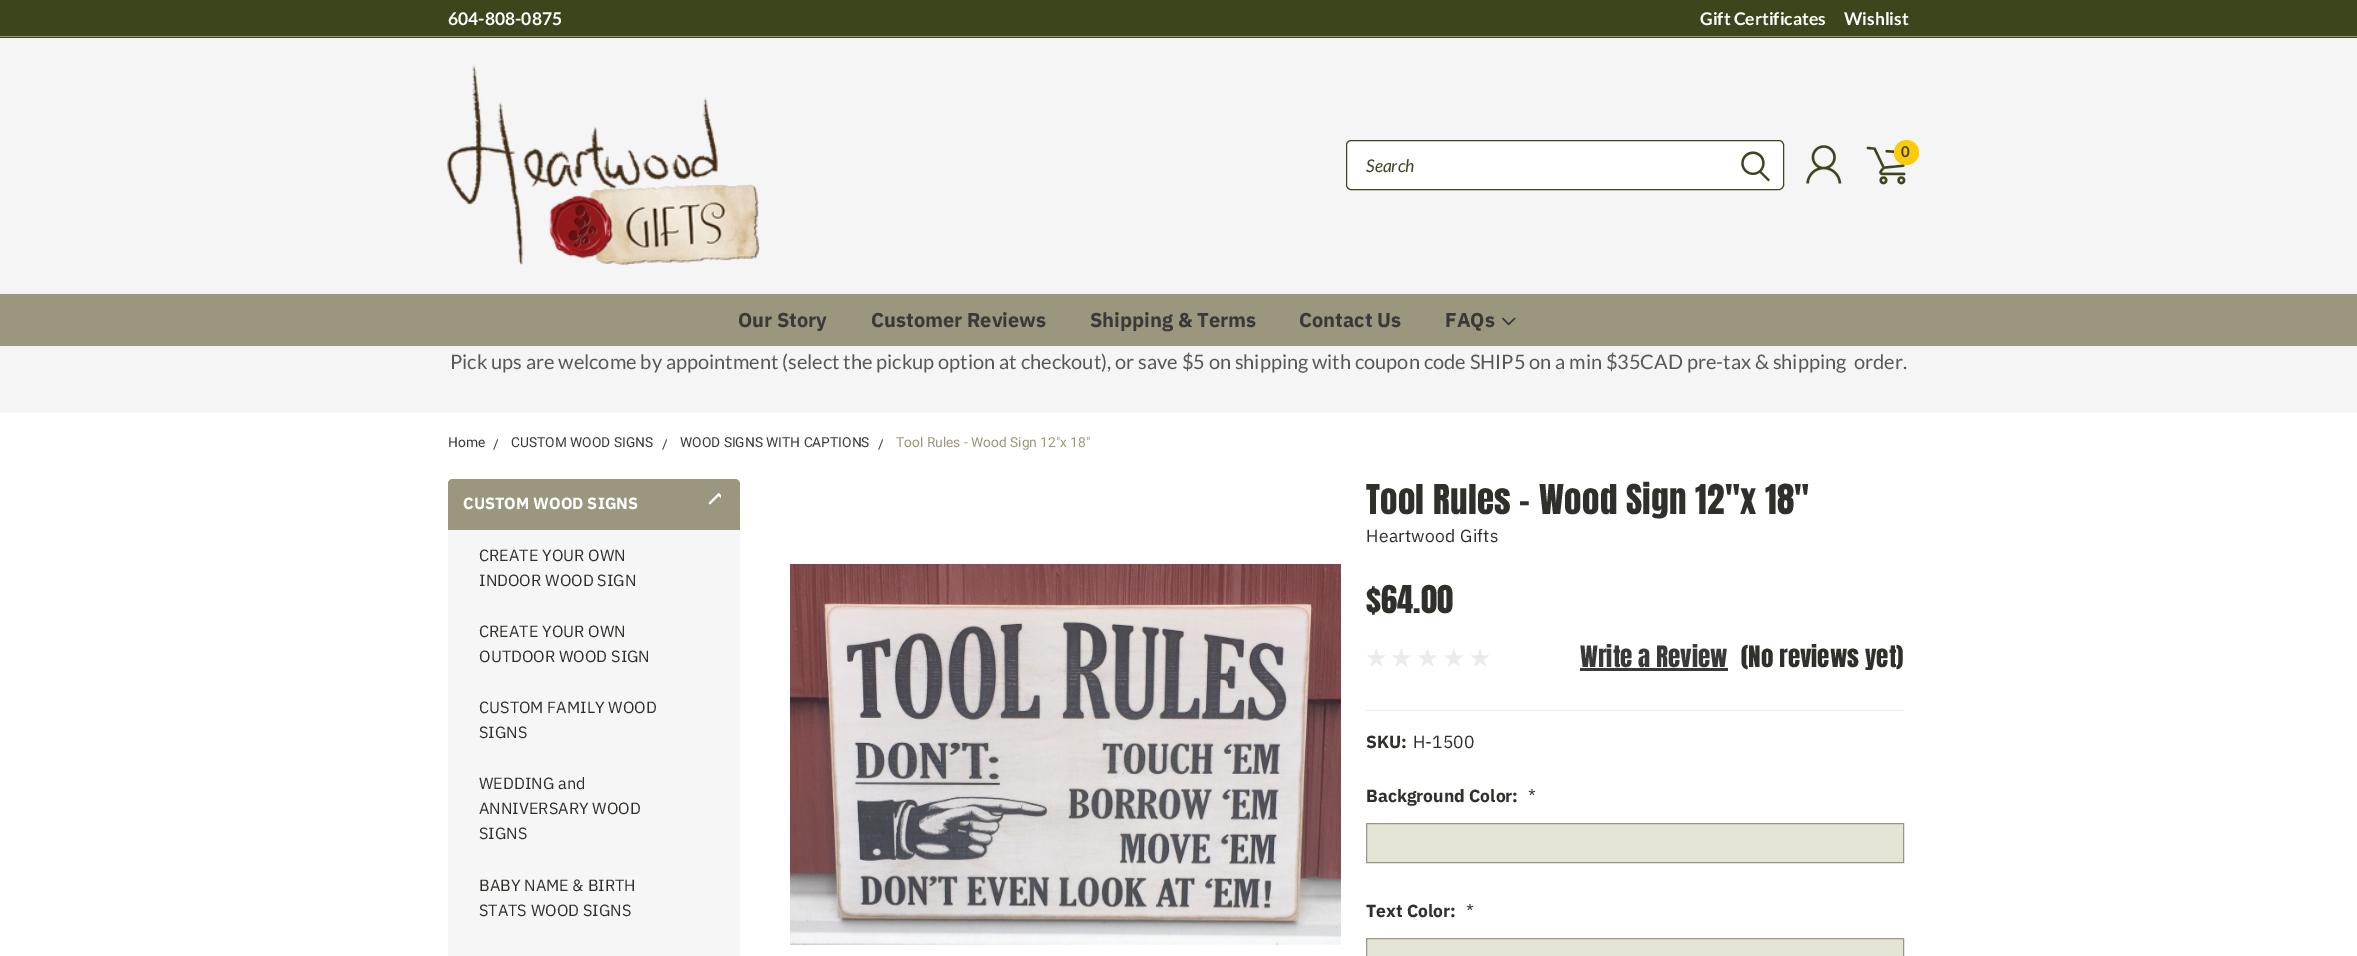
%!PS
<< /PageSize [2357 956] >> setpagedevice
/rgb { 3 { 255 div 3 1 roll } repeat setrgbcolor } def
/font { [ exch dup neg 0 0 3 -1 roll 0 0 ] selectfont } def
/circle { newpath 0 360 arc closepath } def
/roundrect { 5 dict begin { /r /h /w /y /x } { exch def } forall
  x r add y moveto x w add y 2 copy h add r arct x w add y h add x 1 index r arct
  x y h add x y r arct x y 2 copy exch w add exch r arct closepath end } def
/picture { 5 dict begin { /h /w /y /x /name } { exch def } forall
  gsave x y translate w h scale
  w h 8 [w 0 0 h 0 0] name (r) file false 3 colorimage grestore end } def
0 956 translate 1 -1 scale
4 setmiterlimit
255 255 255 rgb
0 0 2357 956 rectfill
[
  [0 38 2357 375 245 245 245]
  [0 0 2357 38 61 69 28]
  [0 36 2357 1 154 151 126]
] { aload pop rgb rectfill } forall
(img/1.rgb) 447 64 313 202 picture
(img/2.rgb) 1806 145 36 39 picture
(img/3.rgb) 1866 146 40 39 picture
255 203 7 rgb
1906.5 152.5 12.5 circle fill
255 255 255 rgb
1346.5 140.5 437 49 4.5 roundrect gsave fill grestore
61 69 29 rgb
stroke
(img/4.rgb) 1741 151 29 31 picture
155 151 126 rgb
0 294 2357 52 rectfill
(img/5.rgb) 1502 317 14 9 picture
448 479 292 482 5 roundrect fill
448 479 248 50 5 roundrect fill
(img/6.rgb) 708 493 13 12 picture
246 246 246 rgb
448 530 292 426 rectfill
(img/7.rgb) 790 564 551 381 picture
(img/8.rgb) 1367 648 19 19 picture
(img/8.rgb) 1392 648 19 19 picture
(img/9.rgb) 1418 648 19 19 picture
(img/10.rgb) 1444 648 20 19 picture
(img/11.rgb) 1470 648 20 19 picture
57 57 57 rgb
1580 668 148 3 rectfill
235 235 235 rgb
1366 710 538 1 rectfill
228 229 215 rgb
1366.5 823.5 moveto 1903.5 823.5 lineto 1903.5 862.5 lineto 1366.5 862.5 lineto closepath gsave fill grestore
155 151 126 rgb
stroke
228 229 215 rgb
1366.5 938.5 moveto 1903.5 938.5 lineto 1903.5 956.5 lineto 1366.5 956.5 lineto closepath gsave fill grestore
155 151 126 rgb
stroke
/Lato-Bold 17.5 font
255 255 255 rgb
[
  [(604-808-0875) 448 25]
  [(Gift Certificates) 1700 25]
  [(Wishlist) 1844 25]
] { aload pop moveto show } forall
/Lato-Bold 15 font
61 69 29 rgb
1901 157 moveto (0) show
/Lato-Italic 17.5 font
1366 172 moveto (Search) show
/IBMPlexSans-Bold 20 font
57 57 57 rgb
[
  [(Our Story) 738 327]
  [(Customer Reviews) 871 327]
  [(Shipping & Terms) 1090 327]
  [(Contact Us) 1299 327]
  [(FAQs) 1445 327]
] { aload pop moveto show } forall
/Lato-Regular 20 font
88 88 88 rgb
450 369 moveto (Pick ups are welcome by appointment \(select the pickup option at checkout\), or save $5 on shipping with coupon code SHIP5 on a min $35CAD pre-tax & shipping  order.) show
/Roboto-Regular 13.75 font
57 57 57 rgb
[
  [(Home) 448 447]
  [(/) 493 449]
  [(CUSTOM WOOD SIGNS) 511 447]
  [(/) 662 449]
  [(WOOD SIGNS WITH CAPTIONS) 680 447]
  [(/) 878 449]
] { aload pop moveto show } forall
155 151 126 rgb
896 447 moveto (Tool Rules - Wood Sign 12"x 18") show
/IBMPlexSans-Bold 16.25 font
255 255 255 rgb
463 509 moveto (CUSTOM WOOD SIGNS) show
/IBMPlexSans-Regular 16.25 font
47 47 43 rgb
[
  [(CREATE YOUR OWN) 479 561]
  [(INDOOR WOOD SIGN) 479 586]
  [(CREATE YOUR OWN) 479 637]
  [(OUTDOOR WOOD SIGN) 479 662]
  [(CUSTOM FAMILY WOOD) 479 713]
  [(SIGNS) 479 738]
  [(WEDDING and) 479 789]
  [(ANNIVERSARY WOOD) 479 814]
  [(SIGNS) 479 839]
  [(BABY NAME & BIRTH) 479 891]
  [(STATS WOOD SIGNS) 479 916]
] { aload pop moveto show } forall
/Anton-Regular 35 font
1366 514 moveto 0.3 0 (Tool Rules - Wood Sign 12"x 18") ashow
/IBMPlexSans-Regular 17.5 font
1366 542 moveto 0.3 0 (Heartwood Gifts) ashow
/Anton-Regular 32.5 font
1366 613 moveto ($64.00) show
/Anton-Regular 25 font
57 57 57 rgb
1580 667 moveto (Write a Review) show
47 47 43 rgb
1741 667 moveto (\(No reviews yet\)) show
/IBMPlexSans-Bold 17.5 font
1366 748 moveto (SKU:) show
/IBMPlexSans-Regular 17.5 font
1413 748 moveto (H-1500) show
/IBMPlexSans-Bold 17.5 font
1366 802 moveto (Background Color:) show
/IBMPlexSans-Regular 17.5 font
57 57 57 rgb
1528 802 moveto (*) show
/IBMPlexSans-Bold 17.5 font
47 47 43 rgb
1366 917 moveto (Text Color:) show
/IBMPlexSans-Regular 17.5 font
57 57 57 rgb
1466 917 moveto (*) show
showpage
